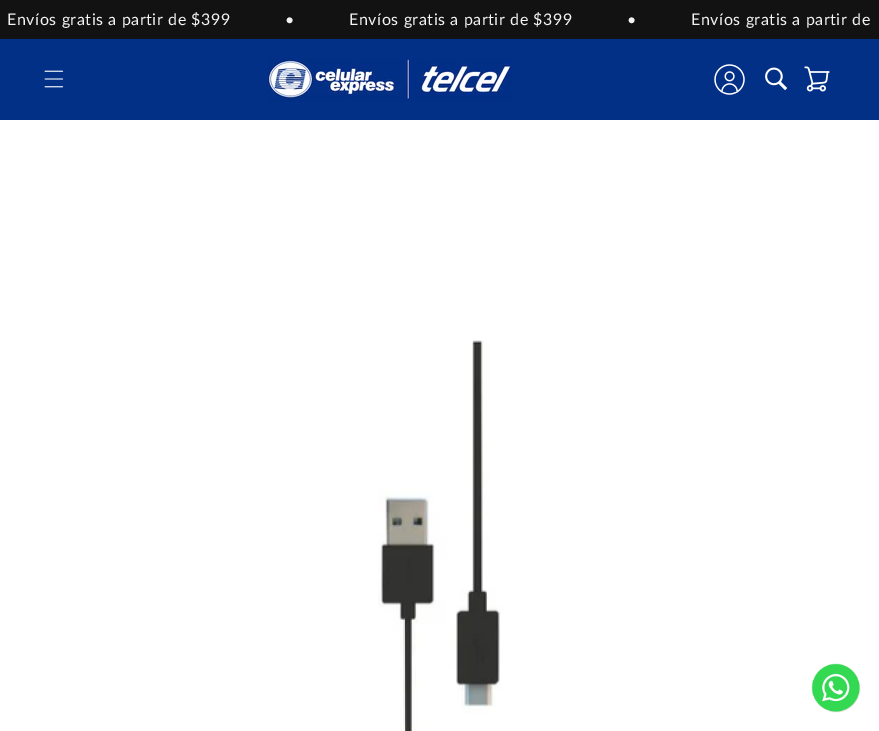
%!PS
<< /PageSize [879 731] >> setpagedevice
/rgb { 3 { 255 div 3 1 roll } repeat setrgbcolor } def
/font { [ exch dup neg 0 0 3 -1 roll 0 0 ] selectfont } def
/picture { 5 dict begin { /h /w /y /x /name } { exch def } forall
  gsave x y translate w h scale
  w h 8 [w 0 0 h 0 0] name (r) file false 3 colorimage grestore end } def
0 731 translate 1 -1 scale
4 setmiterlimit
255 255 255 rgb
0 0 879 731 rectfill
18 18 18 rgb
0 0 879 39 rectfill
2 48 134 rgb
0 39 879 81 rectfill
(img/1.rgb) 44 70 20 18 picture
(img/2.rgb) 267 58 245 44 picture
(img/3.rgb) 714 64 31 31 picture
(img/4.rgb) 765 67 23 24 picture
(img/5.rgb) 804 66 26 26 picture
(img/6.rgb) 378 340 123 391 picture
(img/7.rgb) 811 663 50 50 picture
/Lato-Regular 16 font
243 243 243 rgb
7 25 moveto 0.6 0 (Envíos gratis a partir de $399) ashow
285 25 moveto 0.6 0 (•) ashow
349 25 moveto 0.6 0 (Envíos gratis a partir de $399) ashow
627 25 moveto 0.6 0 (•) ashow
691 25 moveto 0.6 0 (Envíos gratis a partir de) ashow
showpage
